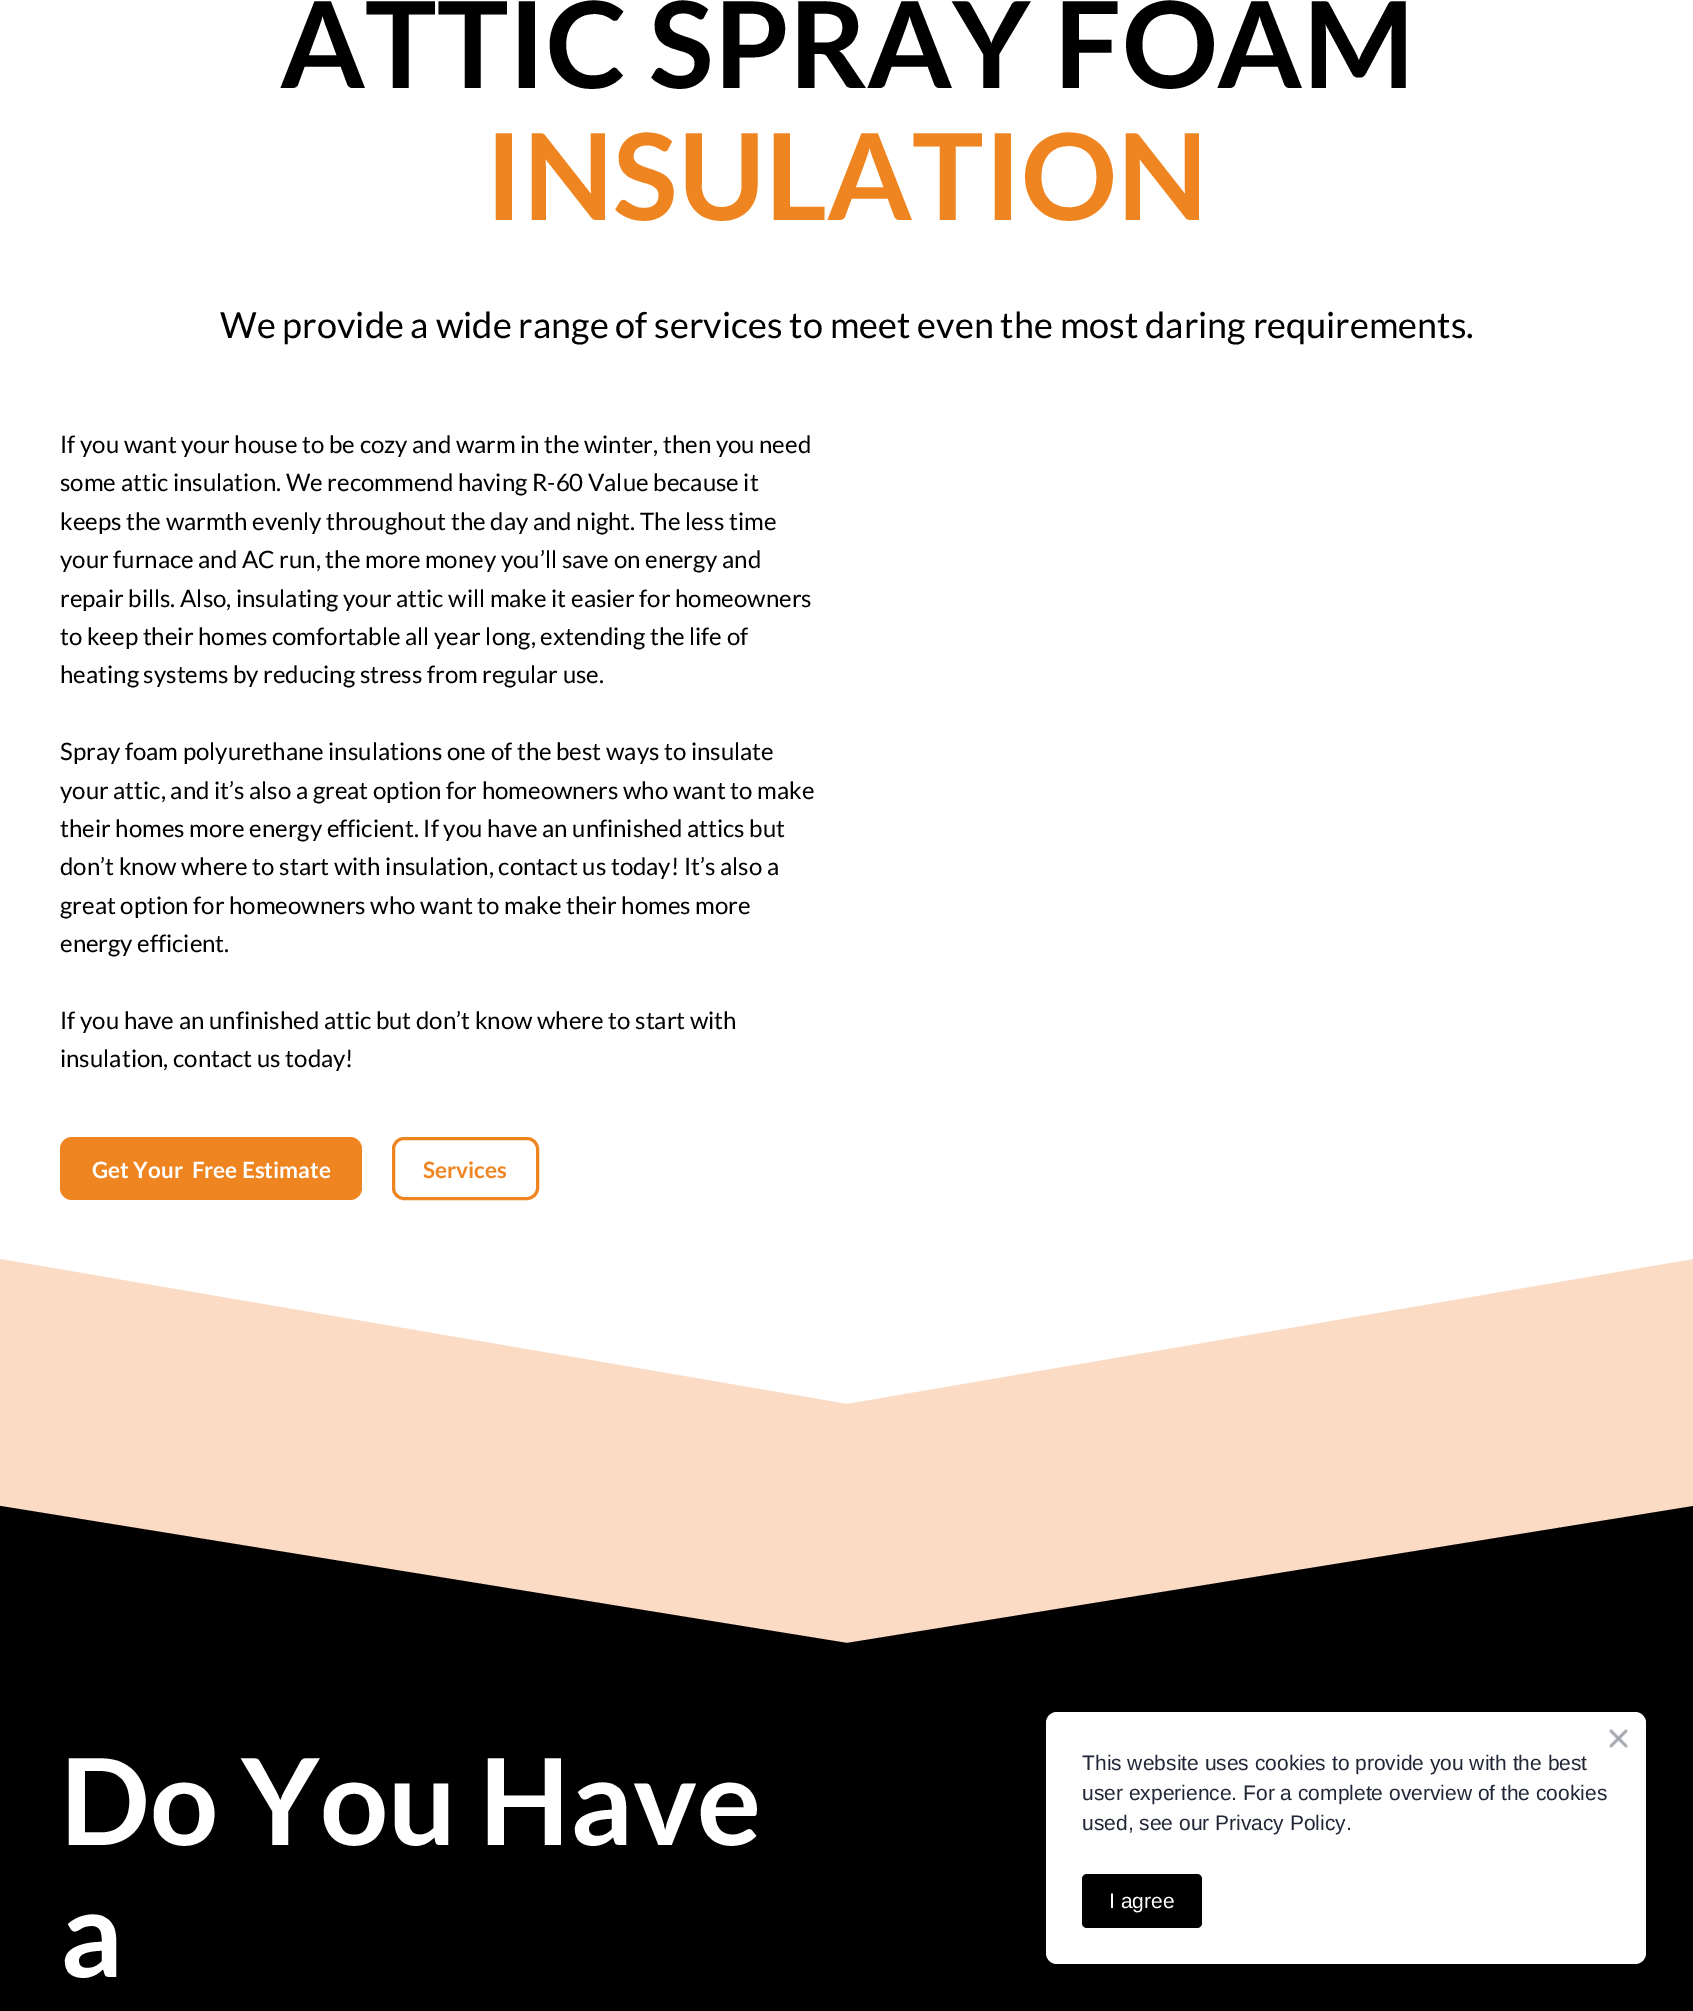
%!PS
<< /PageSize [1693 2011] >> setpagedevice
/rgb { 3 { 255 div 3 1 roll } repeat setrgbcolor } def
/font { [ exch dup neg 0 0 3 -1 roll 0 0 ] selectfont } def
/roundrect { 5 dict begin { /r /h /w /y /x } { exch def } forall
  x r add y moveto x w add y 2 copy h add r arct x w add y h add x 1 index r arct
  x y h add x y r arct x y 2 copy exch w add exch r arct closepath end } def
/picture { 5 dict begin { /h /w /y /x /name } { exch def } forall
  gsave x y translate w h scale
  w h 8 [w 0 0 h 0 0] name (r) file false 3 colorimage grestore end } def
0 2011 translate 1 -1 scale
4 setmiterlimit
255 255 255 rgb
0 0 1693 2011 rectfill
239 133 33 rgb
60 1137 302 63 12 roundrect fill
3 setlinewidth
393.5 1138.5 144 60 10.5 roundrect stroke
252 219 196 rgb
-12 1512 moveto 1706 1512 lineto 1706 1257 lineto 847 1404 lineto -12 1257 lineto closepath fill
0 1512 1693 131 rectfill
0 0 0 rgb
-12 1744 moveto 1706 1744 lineto 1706 1504 lineto 847 1643 lineto -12 1504 lineto closepath fill
0 1744 1693 267 rectfill
255 255 255 rgb
1046 1712 600 252 11 roundrect fill
(img/1.rgb) 1609 1729 19 19 picture
0 0 0 rgb
1082 1874 120 54 5 roundrect fill
/Lato-Bold 120 font
280 88 moveto (ATTIC SPRAY FOAM) show
239 133 33 rgb
485 220 moveto (INSULATION) show
/Lato-Regular 36 font
0 0 0 rgb
220 338 moveto (We provide a wide range of services to meet even the most daring requirements.) show
/Lato-Regular 24 font
[
  [(If you want your house to be cozy and warm in the winter, then you need) 60 453]
  [(some attic insulation. We recommend having R-60 Value because it) 60 491]
  [(keeps the warmth evenly throughout the day and night. The less time) 60 530]
  [(your furnace and AC run, the more money you’ll save on energy and) 60 568]
  [(repair bills. Also, insulating your attic will make it easier for homeowners) 60 607]
  [(to keep their homes comfortable all year long, extending the life of) 60 645]
  [(heating systems by reducing stress from regular use.) 60 683]
  [(Spray foam polyurethane insulations one of the best ways to insulate) 60 760]
  [(your attic, and it’s also a great option for homeowners who want to make) 60 799]
  [(their homes more energy efficient. If you have an unfinished attics but) 60 837]
  [(don’t know where to start with insulation, contact us today! It’s also a) 60 875]
  [(great option for homeowners who want to make their homes more) 60 914]
  [(energy efficient.) 60 952]
  [(If you have an unfinished attic but don’t know where to start with) 60 1029]
  [(insulation, contact us today!) 60 1067]
] { aload pop moveto show } forall
/Lato-Bold 22.5 font
255 255 255 rgb
92 1178 moveto (Get Your  Free Estimate) show
239 133 33 rgb
423 1178 moveto (Services) show
/Lato-Bold 120 font
255 255 255 rgb
60 1845 moveto (Do You Have) show
60 1977 moveto (a) show
/LiberationSans-Regular 21 font
33 39 54 rgb
[
  [(This website uses cookies to provide you with the best) 1082 1770]
  [(user experience. For a complete overview of the cookies) 1082 1800]
  [(used, see our Privacy Policy.) 1082 1830]
] { aload pop moveto show } forall
255 255 255 rgb
1109 1908 moveto (I agree) show
showpage
